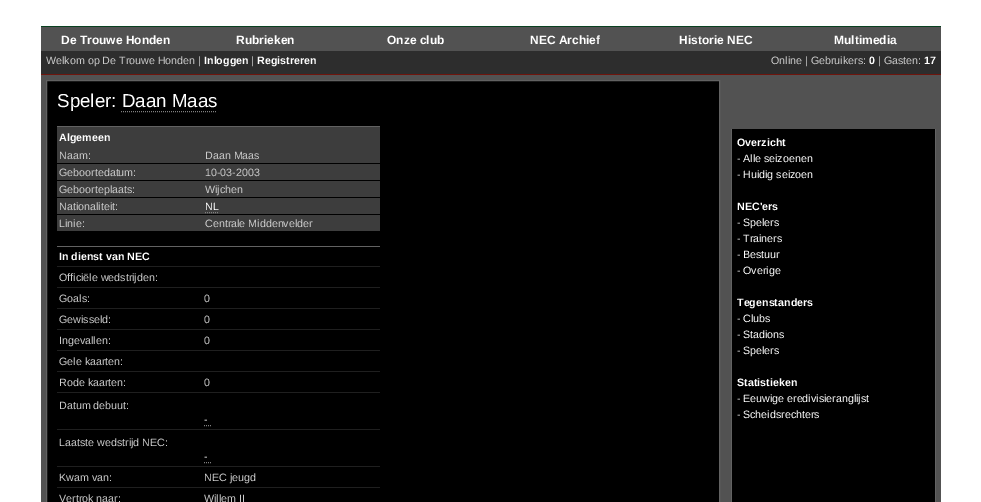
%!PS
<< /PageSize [981 502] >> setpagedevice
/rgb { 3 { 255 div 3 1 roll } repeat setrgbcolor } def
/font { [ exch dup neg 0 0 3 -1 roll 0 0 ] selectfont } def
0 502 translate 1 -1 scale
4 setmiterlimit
255 255 255 rgb
0 0 981 502 rectfill
[
  [41 27 900 475 82 82 82]
  [41 26 900 1 10 65 33]
  [41 51 900 23 45 45 45]
  [41 74 900 1 111 21 13]
] { aload pop rgb rectfill } forall
0 0 0 rgb
46.5 80.5 moveto 719.5 80.5 lineto 719.5 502.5 lineto 46.5 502.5 lineto closepath gsave fill grestore
98 98 98 rgb
stroke
128 128 128 rgb
[1 1] 0 setdash
121 111.5 moveto 216 111.5 lineto stroke
[
  [57 127 323 104 61 61 61]
  [57 126 323 1 98 98 98]
  [57 163 323 1 0 0 0]
  [57 180 323 1 0 0 0]
  [57 197 323 1 0 0 0]
  [57 214 323 1 0 0 0]
] { aload pop rgb rectfill } forall
128 128 128 rgb
205 212.5 moveto 218 212.5 lineto stroke
[
  [57 246 323 1 98 98 98]
  [57 266 323 1 31 31 31]
  [57 287 323 1 31 31 31]
  [57 308 323 1 31 31 31]
  [57 329 323 1 31 31 31]
  [57 350 323 1 31 31 31]
  [57 371 323 1 31 31 31]
  [57 392 323 1 31 31 31]
  [57 429 323 1 31 31 31]
] { aload pop rgb rectfill } forall
128 128 128 rgb
[] 0 setdash
204 425.5 moveto 205 425.5 lineto 206 425.5 moveto 207 425.5 lineto 208 425.5 moveto 209 425.5 lineto 210 425.5 moveto 211 425.5 lineto stroke
31 31 31 rgb
57 466 323 1 rectfill
128 128 128 rgb
204 462.5 moveto 205 462.5 lineto 206 462.5 moveto 207 462.5 lineto 208 462.5 moveto 209 462.5 lineto 210 462.5 moveto 211 462.5 lineto stroke
[
  [57 487 323 1 31 31 31]
  [732 129 203 373 0 0 0]
  [935 129 1 373 98 98 98]
  [731 129 1 373 98 98 98]
] { aload pop rgb rectfill } forall
/LiberationSans-Bold 12 font
255 255 255 rgb
[
  [(De Trouwe Honden) 61 44]
  [(Rubrieken) 236 44]
  [(Onze club) 387 44]
  [(NEC Archief) 530 44]
  [(Historie NEC) 679 44]
  [(Multimedia) 834 44]
] { aload pop moveto show } forall
/LiberationSans-Regular 10.7 font
204 204 204 rgb
46 64 moveto (Welkom op De Trouwe Honden |) show
/LiberationSans-Bold 10.7 font
255 255 255 rgb
204 64 moveto (Inloggen) show
/LiberationSans-Regular 10.7 font
204 204 204 rgb
251 64 moveto (|) show
/LiberationSans-Bold 10.7 font
255 255 255 rgb
257 64 moveto (Registreren) show
/LiberationSans-Regular 10.7 font
204 204 204 rgb
771 64 moveto (Online | Gebruikers:) show
/LiberationSans-Bold 10.7 font
255 255 255 rgb
869 64 moveto (0) show
/LiberationSans-Regular 10.7 font
204 204 204 rgb
878 64 moveto (| Gasten:) show
/LiberationSans-Bold 10.7 font
255 255 255 rgb
924 64 moveto (17) show
/LiberationSans-Regular 18.75 font
57 107 moveto (Speler: Daan Maas) show
/LiberationSans-Bold 10.7 font
59 141 moveto (Algemeen) show
/LiberationSans-Regular 10.7 font
204 204 204 rgb
[
  [(Naam:) 59 159]
  [(Daan Maas) 205 159]
  [(Geboortedatum:) 59 176]
  [(10-03-2003) 205 176]
  [(Geboorteplaats:) 59 193]
  [(Wijchen) 205 193]
  [(Nationaliteit:) 59 210]
] { aload pop moveto show } forall
255 255 255 rgb
205 210 moveto (NL) show
204 204 204 rgb
59 227 moveto (Linie:) show
205 227 moveto (Centrale Middenvelder) show
/LiberationSans-Bold 10.7 font
255 255 255 rgb
59 260 moveto (In dienst van NEC) show
/LiberationSans-Regular 10.7 font
204 204 204 rgb
[
  [(Officiële wedstrijden:) 59 281]
  [(Goals:) 59 302]
  [(0) 204 302]
  [(Gewisseld:) 59 323]
  [(0) 204 323]
  [(Ingevallen:) 59 344]
  [(0) 204 344]
  [(Gele kaarten:) 59 365]
  [(Rode kaarten:) 59 386]
  [(0) 204 386]
  [(Datum debuut:) 59 409]
] { aload pop moveto show } forall
255 255 255 rgb
204 423 moveto (-) show
204 204 204 rgb
59 446 moveto (Laatste wedstrijd NEC:) show
255 255 255 rgb
204 460 moveto (-) show
204 204 204 rgb
[
  [(Kwam van:) 59 481]
  [(NEC jeugd) 204 481]
  [(Vertrok naar:) 59 502]
  [(Willem II) 204 502]
] { aload pop moveto show } forall
/LiberationSans-Bold 10.7 font
255 255 255 rgb
737 146 moveto (Overzicht) show
/LiberationSans-Regular 10.7 font
225 225 225 rgb
737 162 moveto (-) show
255 255 255 rgb
743 162 moveto (Alle seizoenen) show
225 225 225 rgb
737 178 moveto (-) show
255 255 255 rgb
743 178 moveto (Huidig seizoen) show
/LiberationSans-Bold 10.7 font
737 210 moveto (NEC'ers) show
/LiberationSans-Regular 10.7 font
225 225 225 rgb
737 226 moveto (-) show
255 255 255 rgb
743 226 moveto (Spelers) show
225 225 225 rgb
737 242 moveto (-) show
255 255 255 rgb
743 242 moveto (Trainers) show
225 225 225 rgb
737 258 moveto (-) show
255 255 255 rgb
743 258 moveto (Bestuur) show
225 225 225 rgb
737 274 moveto (-) show
255 255 255 rgb
743 274 moveto (Overige) show
/LiberationSans-Bold 10.7 font
737 306 moveto (Tegenstanders) show
/LiberationSans-Regular 10.7 font
225 225 225 rgb
737 322 moveto (-) show
255 255 255 rgb
743 322 moveto (Clubs) show
225 225 225 rgb
737 338 moveto (-) show
255 255 255 rgb
743 338 moveto (Stadions) show
225 225 225 rgb
737 354 moveto (-) show
255 255 255 rgb
743 354 moveto (Spelers) show
/LiberationSans-Bold 10.7 font
737 386 moveto (Statistieken) show
/LiberationSans-Regular 10.7 font
225 225 225 rgb
737 402 moveto (-) show
255 255 255 rgb
743 402 moveto (Eeuwige eredivisieranglijst) show
225 225 225 rgb
737 418 moveto (-) show
255 255 255 rgb
743 418 moveto (Scheidsrechters) show
showpage
